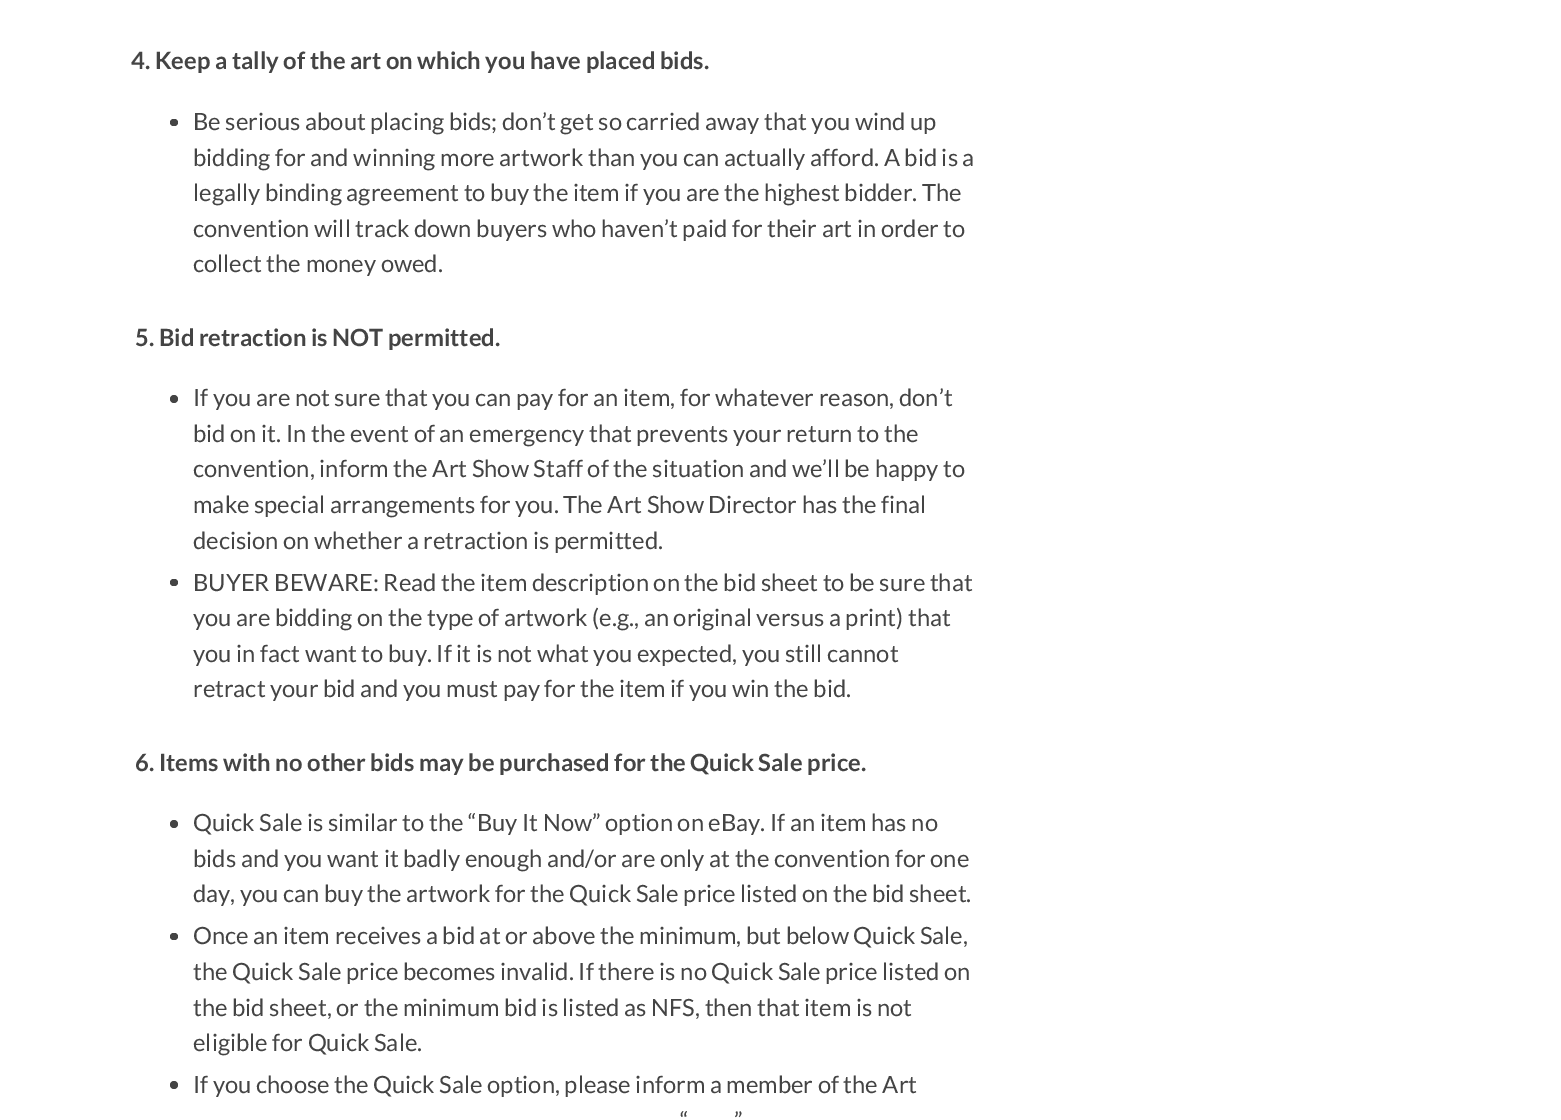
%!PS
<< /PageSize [1561 1120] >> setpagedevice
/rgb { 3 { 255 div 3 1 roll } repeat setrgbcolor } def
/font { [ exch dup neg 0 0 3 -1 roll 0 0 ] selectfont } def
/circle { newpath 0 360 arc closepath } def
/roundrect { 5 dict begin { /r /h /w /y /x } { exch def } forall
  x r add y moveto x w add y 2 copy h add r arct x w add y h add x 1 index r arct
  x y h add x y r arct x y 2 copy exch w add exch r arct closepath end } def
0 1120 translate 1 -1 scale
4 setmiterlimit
255 255 255 rgb
0 0 1561 1120 rectfill
68 68 68 rgb
170 119 8 7 3.5 roundrect fill
174 399 4 circle fill
170 579 8 7 3.5 roundrect fill
174 824 4 circle fill
170 933 8 7 3.5 roundrect fill
174 1085 4 circle fill
/Lato-Bold 23.75 font
131 69 moveto (4. Keep a tally of the art on which you have placed bids.) show
/Lato-Regular 23.75 font
[
  [(Be serious about placing bids; don’t get so carried away that you wind up) 193 130]
  [(bidding for and winning more artwork than you can actually afford. A bid is a) 193 166]
  [(legally binding agreement to buy the item if you are the highest bidder. The) 193 201]
  [(convention will track down buyers who haven’t paid for their art in order to) 193 237]
  [(collect the money owed.) 193 272]
] { aload pop moveto show } forall
/Lato-Bold 23.75 font
135 346 moveto (5. Bid retraction is NOT permitted.) show
/Lato-Regular 23.75 font
[
  [(If you are not sure that you can pay for an item, for whatever reason, don’t) 193 406]
  [(bid on it. In the event of an emergency that prevents your return to the) 193 442]
  [(convention, inform the Art Show Staff of the situation and we’ll be happy to) 193 477]
  [(make special arrangements for you. The Art Show Director has the final) 193 513]
  [(decision on whether a retraction is permitted.) 193 549]
  [(BUYER BEWARE: Read the item description on the bid sheet to be sure that) 193 591]
  [(you are bidding on the type of artwork \(e.g., an original versus a print\) that) 193 626]
  [(you in fact want to buy. If it is not what you expected, you still cannot) 193 662]
  [(retract your bid and you must pay for the item if you win the bid.) 193 697]
] { aload pop moveto show } forall
/Lato-Bold 23.75 font
135 771 moveto (6. Items with no other bids may be purchased for the Quick Sale price.) show
/Lato-Regular 23.75 font
[
  [(Quick Sale is similar to the “Buy It Now” option on eBay. If an item has no) 193 831]
  [(bids and you want it badly enough and/or are only at the convention for one) 193 867]
  [(day, you can buy the artwork for the Quick Sale price listed on the bid sheet.) 193 902]
  [(Once an item receives a bid at or above the minimum, but below Quick Sale,) 193 944]
  [(the Quick Sale price becomes invalid. If there is no Quick Sale price listed on) 193 980]
  [(the bid sheet, or the minimum bid is listed as NFS, then that item is not) 193 1016]
  [(eligible for Quick Sale.) 193 1051]
  [(If you choose the Quick Sale option, please inform a member of the Art) 193 1093]
  [(“) 680 1129]
  [(”) 734 1129]
] { aload pop moveto show } forall
showpage
